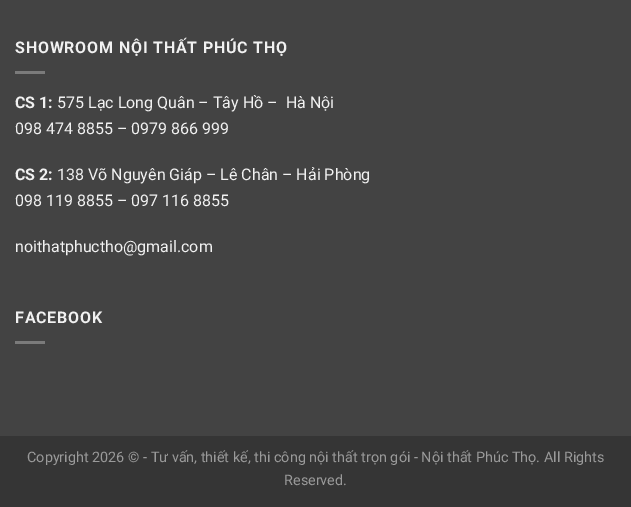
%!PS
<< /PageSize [631 507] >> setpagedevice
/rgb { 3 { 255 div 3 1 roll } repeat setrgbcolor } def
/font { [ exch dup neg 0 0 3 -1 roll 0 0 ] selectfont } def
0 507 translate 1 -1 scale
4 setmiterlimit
67 67 67 rgb
0 0 631 507 rectfill
[
  [15 71 30 3 123 123 123]
  [15 341 30 3 123 123 123]
  [0 436 631 71 53 53 53]
] { aload pop rgb rectfill } forall
/Roboto-Bold 16 font
241 241 241 rgb
15 53 moveto 0.8 0 (SHOWROOM NỘI THẤT PHÚC THỌ) ashow
15 108 moveto (CS 1:) show
/Roboto-Regular 16 font
57 108 moveto (575 Lạc Long Quân – Tây Hồ –  Hà Nội) show
15 134 moveto (098 474 8855 – 0979 866 999) show
/Roboto-Bold 16 font
15 180 moveto (CS 2:) show
/Roboto-Regular 16 font
[
  [(138 Võ Nguyên Giáp – Lê Chân – Hải Phòng) 57 180]
  [(098 119 8855 – 097 116 8855) 15 206]
  [(noithatphuctho@gmail.com) 15 252]
] { aload pop moveto show } forall
/Roboto-Bold 16 font
15 323 moveto 0.8 0 (FACEBOOK) ashow
/Roboto-Regular 14.4 font
154 154 154 rgb
27 462 moveto (Copyright 2026 © - Tư vấn, thiết kế, thi công nội thất trọn gói - Nội thất Phúc Thọ. All Rights) show
284 485 moveto (Reserved.) show
showpage
